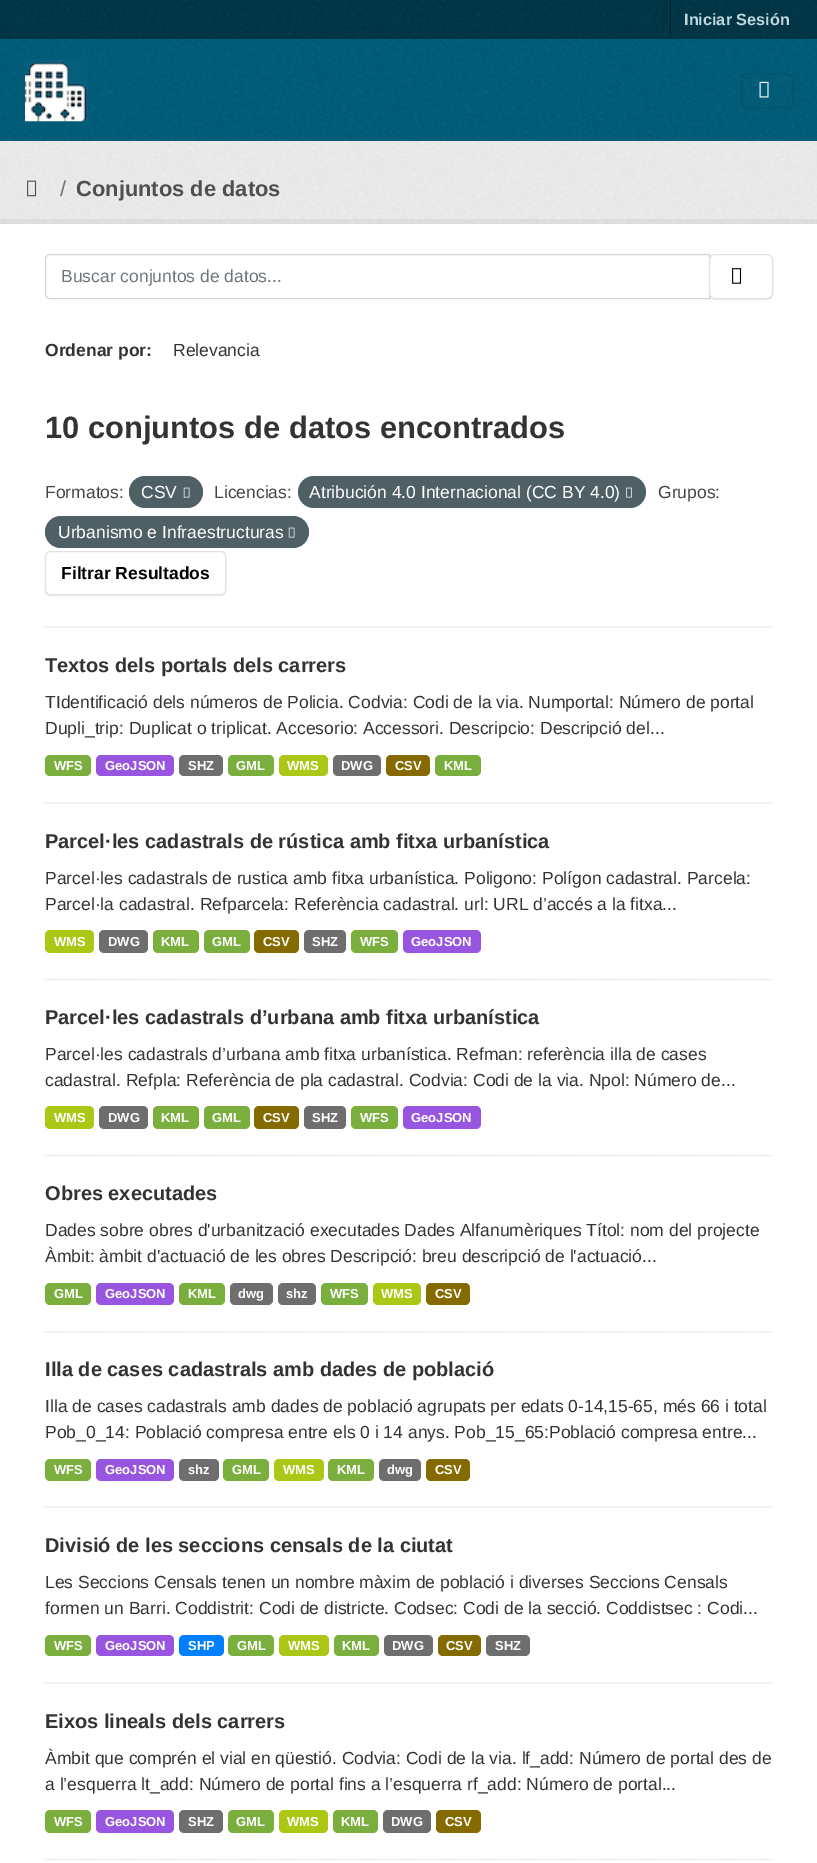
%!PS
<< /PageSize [817 1863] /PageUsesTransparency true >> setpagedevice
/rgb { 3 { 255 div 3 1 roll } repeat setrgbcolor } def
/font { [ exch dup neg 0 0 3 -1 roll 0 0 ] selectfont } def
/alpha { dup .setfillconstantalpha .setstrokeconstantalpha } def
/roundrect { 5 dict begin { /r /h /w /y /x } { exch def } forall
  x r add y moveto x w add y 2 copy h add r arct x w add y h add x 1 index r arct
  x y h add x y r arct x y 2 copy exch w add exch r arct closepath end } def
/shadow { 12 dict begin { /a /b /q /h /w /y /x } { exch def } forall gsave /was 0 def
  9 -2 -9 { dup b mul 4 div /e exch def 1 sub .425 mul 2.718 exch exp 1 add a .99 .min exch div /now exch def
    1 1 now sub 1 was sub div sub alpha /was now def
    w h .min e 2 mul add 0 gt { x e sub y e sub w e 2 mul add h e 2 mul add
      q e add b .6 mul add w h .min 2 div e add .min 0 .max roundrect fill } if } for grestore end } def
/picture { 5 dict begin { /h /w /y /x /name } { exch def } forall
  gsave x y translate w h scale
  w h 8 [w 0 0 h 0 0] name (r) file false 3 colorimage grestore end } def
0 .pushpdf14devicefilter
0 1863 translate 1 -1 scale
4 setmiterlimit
0 54 71 rgb
0 0 817 1863 rectfill
(img/1.rgb) 0 0 817 38 picture
0 35 46 rgb
670 0 1 39 rectfill
0 93 122 rgb
0 39 817 102 rectfill
(img/2.rgb) 0 39 817 102 picture
(img/3.rgb) 25 59 63 63 picture
0.1 alpha
0 0 0 rgb
741.5 73.5 51 34 4.5 roundrect stroke
1 alpha
(img/4.rgb) 759 81 10 17 picture
238 238 238 rgb
0 141 817 83 rectfill
(img/5.rgb) 0 141 817 83 picture
(img/6.rgb) 27 180 10 17 picture
0.05 alpha
0 0 0 rgb
5 setlinewidth
-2.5 221.5 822 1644 rectstroke
1 alpha
255 255 255 rgb
0 224 817 1639 rectfill
221 221 221 rgb
1.2 setlinewidth
[1.25 1.25] 0 setdash
45 627 moveto 772.5 627 lineto stroke
206 212 218 rgb
1 setlinewidth
[] 0 setdash
50 254.5 moveto 709.5 254.5 lineto 709.5 298.5 lineto 50 298.5 lineto 47.5 298.5 45.5 296.5 45.5 294 curveto 45.5 259 lineto 45.5 256.5 47.5 254.5 50 254.5 curveto closepath stroke
0 0 0 rgb
709 255 64 45 6 0.5 0.07 shadow
255 255 255 rgb
709.5 254.5 63 44 5.5 roundrect gsave fill grestore
222 226 230 rgb
stroke
(img/7.rgb) 732 268 10 16 picture
78 95 101 rgb
129 476 74 32 16 roundrect fill
(img/8.rgb) 183 487 7 11 picture
298 476 348 32 16 roundrect fill
(img/9.rgb) 626 487 6 11 picture
45 516 264 32 16 roundrect fill
(img/8.rgb) 288 527 7 11 picture
0 0 0 rgb
45 553 181 43 5 0.5 0.07 shadow
255 255 255 rgb
45.5 551.5 180 43 4.5 roundrect gsave fill grestore
222 226 230 rgb
stroke
221 221 221 rgb
1.2 setlinewidth
[1.25 1.25] 0 setdash
45 803 moveto 772.5 803 lineto stroke
122 174 61 rgb
45 755 46 21 5 roundrect fill
152 85 224 rgb
96 755 78 21 5 roundrect fill
110 110 110 rgb
179 755 44 21 5 roundrect fill
122 174 61 rgb
228 755 46 21 5 roundrect fill
173 199 23 rgb
279 755 49 21 5 roundrect fill
110 110 110 rgb
333 755 48 21 5 roundrect fill
133 106 0 rgb
386 755 44 21 5 roundrect fill
122 174 61 rgb
435 755 46 21 5 roundrect fill
221 221 221 rgb
45 979.5 moveto 772.5 979.5 lineto stroke
173 199 23 rgb
45 930 49 23 5 roundrect fill
110 110 110 rgb
99 930 49 23 5 roundrect fill
122 174 61 rgb
153 930 46 23 5 roundrect fill
204 930 46 23 5 roundrect fill
133 106 0 rgb
254 930 45 23 5 roundrect fill
110 110 110 rgb
304 930 42 23 5 roundrect fill
122 174 61 rgb
351 930 47 23 5 roundrect fill
152 85 224 rgb
403 930 78 23 5 roundrect fill
221 221 221 rgb
45 1155.5 moveto 772.5 1155.5 lineto stroke
173 199 23 rgb
45 1106 49 23 5 roundrect fill
110 110 110 rgb
99 1106 49 23 5 roundrect fill
122 174 61 rgb
153 1106 46 23 5 roundrect fill
204 1106 46 23 5 roundrect fill
133 106 0 rgb
254 1106 45 23 5 roundrect fill
110 110 110 rgb
304 1106 42 23 5 roundrect fill
122 174 61 rgb
351 1106 47 23 5 roundrect fill
152 85 224 rgb
403 1106 78 23 5 roundrect fill
221 221 221 rgb
45 1332 moveto 772.5 1332 lineto stroke
122 174 61 rgb
45 1283 46 22 5 roundrect fill
152 85 224 rgb
96 1283 78 22 5 roundrect fill
122 174 61 rgb
179 1283 46 22 5 roundrect fill
110 110 110 rgb
230 1283 43 22 5 roundrect fill
278 1283 38 22 5 roundrect fill
122 174 61 rgb
321 1283 47 22 5 roundrect fill
173 199 23 rgb
373 1283 48 22 5 roundrect fill
133 106 0 rgb
426 1283 44 22 5 roundrect fill
221 221 221 rgb
45 1507 moveto 772.5 1507 lineto stroke
122 174 61 rgb
45 1459 46 22 5 roundrect fill
152 85 224 rgb
96 1459 78 22 5 roundrect fill
110 110 110 rgb
179 1459 40 22 5 roundrect fill
122 174 61 rgb
223 1459 46 22 5 roundrect fill
173 199 23 rgb
274 1459 50 22 5 roundrect fill
122 174 61 rgb
328 1459 46 22 5 roundrect fill
110 110 110 rgb
379 1459 42 22 5 roundrect fill
133 106 0 rgb
426 1459 44 22 5 roundrect fill
221 221 221 rgb
45 1683 moveto 772.5 1683 lineto stroke
122 174 61 rgb
45 1635 46 21 5 roundrect fill
152 85 224 rgb
96 1635 78 21 5 roundrect fill
0 128 255 rgb
179 1635 45 21 5 roundrect fill
122 174 61 rgb
228 1635 46 21 5 roundrect fill
173 199 23 rgb
279 1635 50 21 5 roundrect fill
122 174 61 rgb
334 1635 45 21 5 roundrect fill
110 110 110 rgb
384 1635 49 21 5 roundrect fill
133 106 0 rgb
438 1635 43 21 5 roundrect fill
110 110 110 rgb
486 1635 44 21 5 roundrect fill
221 221 221 rgb
45 1859.5 moveto 772.5 1859.5 lineto stroke
122 174 61 rgb
45 1810 46 23 5 roundrect fill
152 85 224 rgb
96 1810 78 23 5 roundrect fill
110 110 110 rgb
179 1810 44 23 5 roundrect fill
122 174 61 rgb
228 1810 46 23 5 roundrect fill
173 199 23 rgb
279 1810 49 23 5 roundrect fill
122 174 61 rgb
333 1810 45 23 5 roundrect fill
110 110 110 rgb
383 1810 48 23 5 roundrect fill
133 106 0 rgb
436 1810 45 23 5 roundrect fill
/LiberationSans-Bold 16.25 font
191 215 222 rgb
684 25 moveto (Iniciar Sesión) show
/LiberationSans-Regular 21.9 font
108 117 125 rgb
60 196 moveto (/) show
/LiberationSans-Bold 21.9 font
80 80 80 rgb
76 196 moveto (Conjuntos de datos) show
/LiberationSans-Regular 17.5 font
108 117 125 rgb
61 282 moveto (Buscar conjuntos de datos...) show
/LiberationSans-Bold 17.5 font
51 51 51 rgb
45 356 moveto (Ordenar por:) show
/LiberationSans-Regular 17.5 font
173 356 moveto (Relevancia) show
/LiberationSans-Bold 30.9 font
45 438 moveto (10 conjuntos de datos encontrados) show
/LiberationSans-Regular 17.5 font
68 68 68 rgb
45 498 moveto (Formatos:) show
255 255 255 rgb
141 498 moveto (CSV) show
68 68 68 rgb
214 498 moveto (Licencias:) show
255 255 255 rgb
309 498 moveto (Atribución 4.0 Internacional \(CC BY 4.0\)) show
68 68 68 rgb
658 498 moveto (Grupos:) show
255 255 255 rgb
58 538 moveto (Urbanismo e Infraestructuras) show
/LiberationSans-Bold 17.5 font
0 0 0 rgb
61 579 moveto (Filtrar Resultados) show
/LiberationSans-Bold 20 font
51 51 51 rgb
45 672 moveto (Textos dels portals dels carrers) show
/LiberationSans-Regular 17.5 font
45 708 moveto (TIdentificació dels números de Policia. Codvia: Codi de la via. Numportal: Número de portal) show
45 734 moveto (Dupli_trip: Duplicat o triplicat. Accesorio: Accessori. Descripcio: Descripció del...) show
/LiberationSans-Bold 13 font
255 255 255 rgb
[
  [(WFS) 54 770]
  [(GeoJSON) 105 770]
  [(SHZ) 188 770]
  [(GML) 236 770]
  [(WMS) 287 770]
  [(DWG) 341 770]
  [(CSV) 395 770]
  [(KML) 444 770]
] { aload pop moveto show } forall
/LiberationSans-Bold 20 font
51 51 51 rgb
45 848 moveto (Parcel·les cadastrals de rústica amb fitxa urbanística) show
/LiberationSans-Regular 17.5 font
45 884 moveto (Parcel·les cadastrals de rustica amb fitxa urbanística. Poligono: Polígon cadastral. Parcela:) show
45 910 moveto (Parcel·la cadastral. Refparcela: Referència cadastral. url: URL d’accés a la fitxa...) show
/LiberationSans-Bold 13 font
255 255 255 rgb
[
  [(WMS) 54 946]
  [(DWG) 108 946]
  [(KML) 161 946]
  [(GML) 212 946]
  [(CSV) 263 946]
  [(SHZ) 312 946]
  [(WFS) 360 946]
  [(GeoJSON) 411 946]
] { aload pop moveto show } forall
/LiberationSans-Bold 20 font
51 51 51 rgb
45 1024 moveto (Parcel·les cadastrals d’urbana amb fitxa urbanística) show
/LiberationSans-Regular 17.5 font
45 1060 moveto (Parcel·les cadastrals d’urbana amb fitxa urbanística. Refman: referència illa de cases) show
45 1086 moveto (cadastral. Refpla: Referència de pla cadastral. Codvia: Codi de la via. Npol: Número de...) show
/LiberationSans-Bold 13 font
255 255 255 rgb
[
  [(WMS) 54 1122]
  [(DWG) 108 1122]
  [(KML) 161 1122]
  [(GML) 212 1122]
  [(CSV) 263 1122]
  [(SHZ) 312 1122]
  [(WFS) 360 1122]
  [(GeoJSON) 411 1122]
] { aload pop moveto show } forall
/LiberationSans-Bold 20 font
51 51 51 rgb
45 1200 moveto (Obres executades) show
/LiberationSans-Regular 17.5 font
45 1236 moveto (Dades sobre obres d'urbanització executades Dades Alfanumèriques Títol: nom del projecte) show
45 1262 moveto (Àmbit: àmbit d'actuació de les obres Descripció: breu descripció de l'actuació...) show
/LiberationSans-Bold 13 font
255 255 255 rgb
[
  [(GML) 54 1298]
  [(GeoJSON) 105 1298]
  [(KML) 188 1298]
  [(dwg) 238 1298]
  [(shz) 286 1298]
  [(WFS) 330 1298]
  [(WMS) 381 1298]
  [(CSV) 435 1298]
] { aload pop moveto show } forall
/LiberationSans-Bold 20 font
51 51 51 rgb
45 1376 moveto (Illa de cases cadastrals amb dades de població) show
/LiberationSans-Regular 17.5 font
45 1412 moveto (Illa de cases cadastrals amb dades de població agrupats per edats 0-14,15-65, més 66 i total) show
45 1438 moveto (Pob_0_14: Població compresa entre els 0 i 14 anys. Pob_15_65:Població compresa entre...) show
/LiberationSans-Bold 13 font
255 255 255 rgb
[
  [(WFS) 54 1474]
  [(GeoJSON) 105 1474]
  [(shz) 188 1474]
  [(GML) 232 1474]
  [(WMS) 283 1474]
  [(KML) 337 1474]
  [(dwg) 387 1474]
  [(CSV) 435 1474]
] { aload pop moveto show } forall
/LiberationSans-Bold 20 font
51 51 51 rgb
45 1552 moveto (Divisió de les seccions censals de la ciutat) show
/LiberationSans-Regular 17.5 font
45 1588 moveto (Les Seccions Censals tenen un nombre màxim de població i diverses Seccions Censals) show
45 1614 moveto (formen un Barri. Coddistrit: Codi de districte. Codsec: Codi de la secció. Coddistsec : Codi...) show
/LiberationSans-Bold 13 font
255 255 255 rgb
[
  [(WFS) 54 1650]
  [(GeoJSON) 105 1650]
  [(SHP) 188 1650]
  [(GML) 237 1650]
  [(WMS) 288 1650]
  [(KML) 342 1650]
  [(DWG) 392 1650]
  [(CSV) 446 1650]
  [(SHZ) 495 1650]
] { aload pop moveto show } forall
/LiberationSans-Bold 20 font
51 51 51 rgb
45 1728 moveto (Eixos lineals dels carrers) show
/LiberationSans-Regular 17.5 font
45 1764 moveto (Àmbit que comprén el vial en qüestió. Codvia: Codi de la via. lf_add: Número de portal des de) show
45 1790 moveto (a l’esquerra lt_add: Número de portal fins a l’esquerra rf_add: Número de portal...) show
/LiberationSans-Bold 13 font
255 255 255 rgb
[
  [(WFS) 54 1826]
  [(GeoJSON) 105 1826]
  [(SHZ) 188 1826]
  [(GML) 236 1826]
  [(WMS) 287 1826]
  [(KML) 341 1826]
  [(DWG) 391 1826]
  [(CSV) 445 1826]
] { aload pop moveto show } forall
.poppdf14devicefilter showpage
